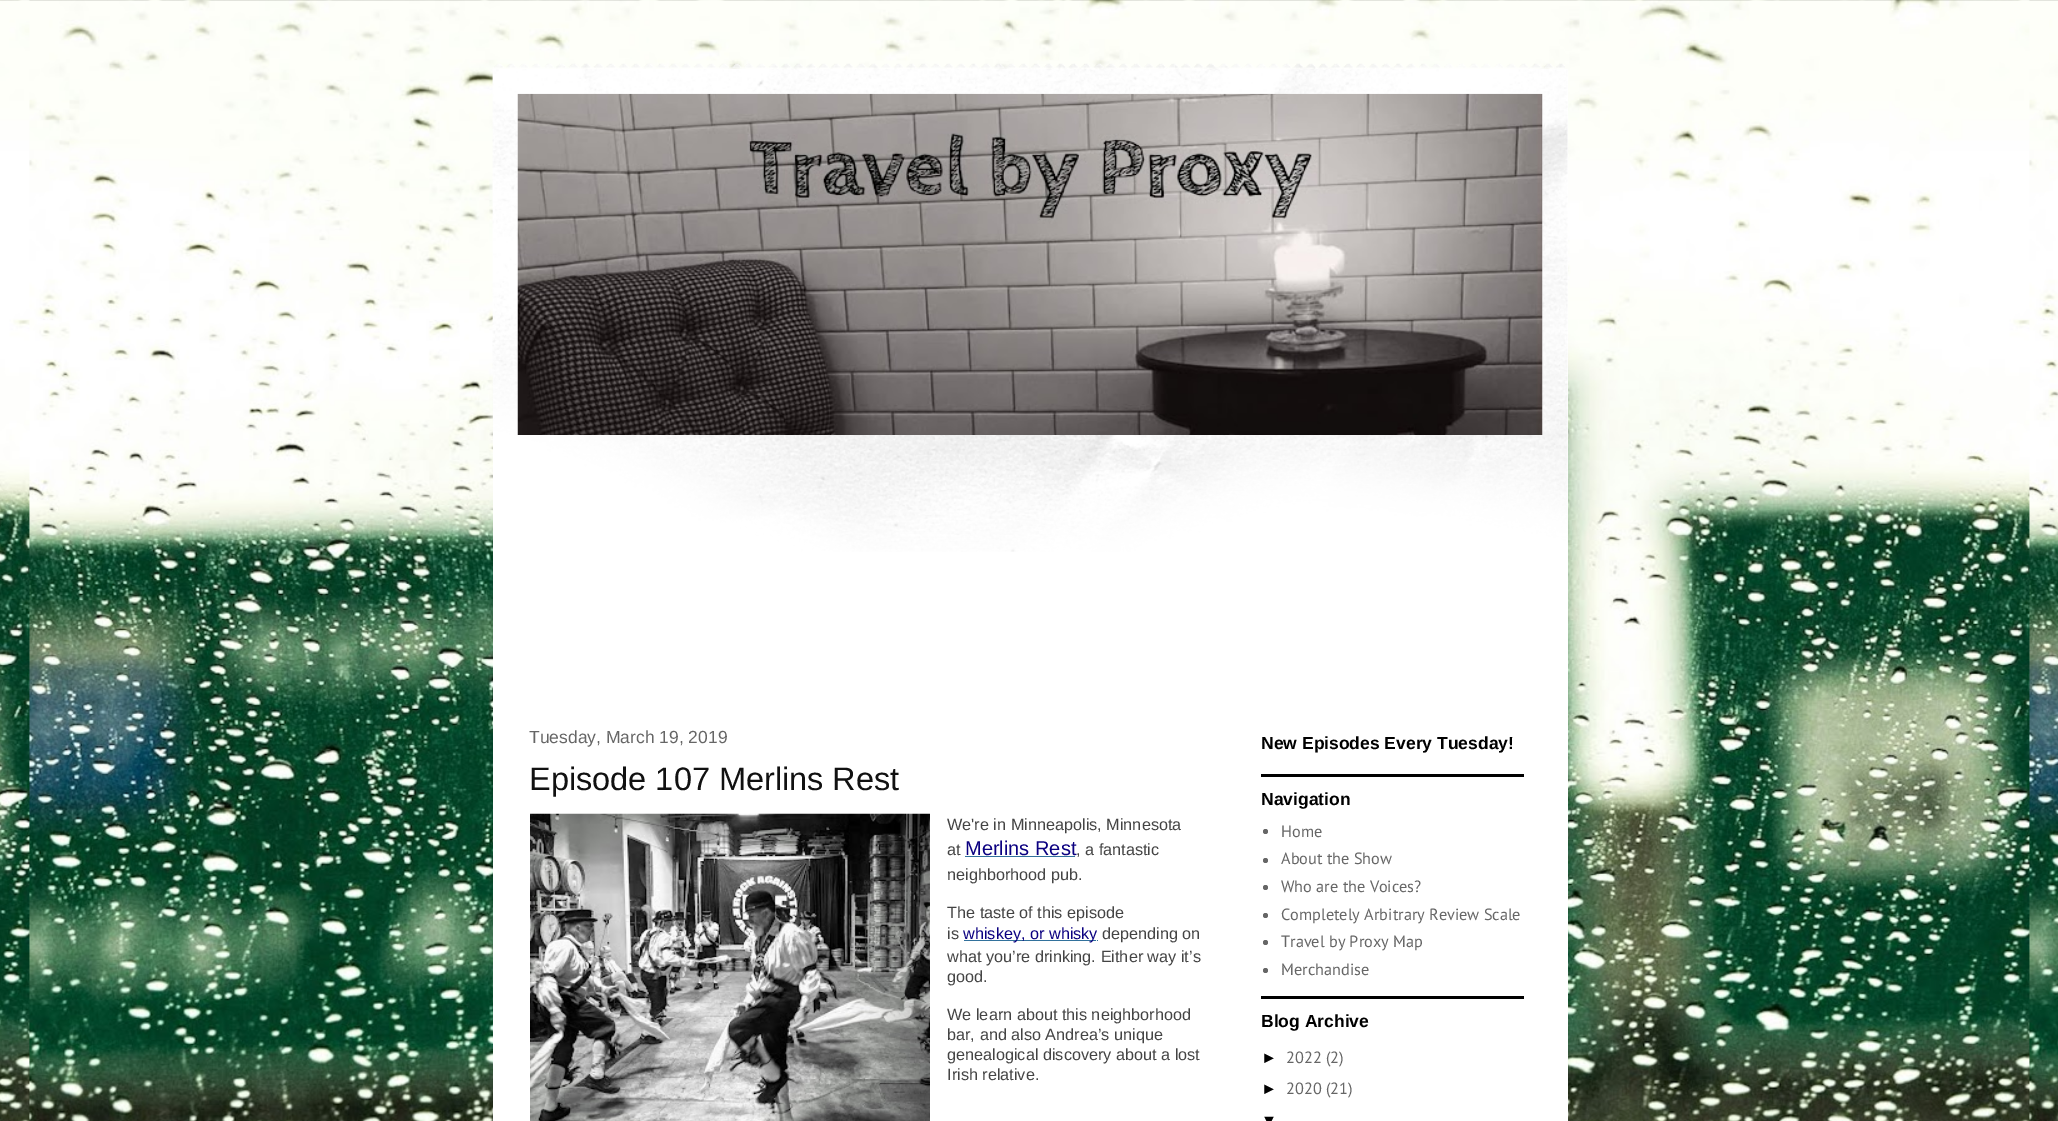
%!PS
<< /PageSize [2058 1121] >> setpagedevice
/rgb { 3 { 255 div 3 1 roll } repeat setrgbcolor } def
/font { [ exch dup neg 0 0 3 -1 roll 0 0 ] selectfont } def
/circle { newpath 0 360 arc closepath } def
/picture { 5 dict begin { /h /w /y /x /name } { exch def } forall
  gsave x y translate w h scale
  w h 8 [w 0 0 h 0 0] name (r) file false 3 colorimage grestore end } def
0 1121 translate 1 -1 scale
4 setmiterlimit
255 255 255 rgb
0 0 2058 1121 rectfill
(img/1.rgb) 0 0 2058 1121 picture
(img/2.rgb) 493 63 1072 6 picture
493 69 1075 1052 rectfill
(img/3.rgb) 492 69 1076 483 picture
(img/4.rgb) 517 93 1026 342 picture
(img/5.rgb) 530 813 400 308 picture
[
  [965 856 111 1 50 113 156]
  [1075 856 1 1 248 249 250]
  [965 855 1 1 248 249 250]
  [964 940 134 1 50 113 156]
  [1096 940 1 1 248 249 250]
  [964 939 1 1 248 249 250]
  [1261 774 263 3 0 0 0]
  [1261 996 263 3 0 0 0]
] { aload pop rgb rectfill } forall
102 102 102 rgb
1265.5 831.5 2.5 circle fill
1265.5 860.5 2.5 circle fill
1265.5 887.5 2.5 circle fill
1265.5 915.5 2.5 circle fill
1265.5 942.5 2.5 circle fill
1265.5 970.5 2.5 circle fill
/LiberationSans-Regular 17.5 font
529 743 moveto (Tuesday, March 19, 2019) show
/LiberationSans-Regular 32.5 font
17 17 17 rgb
529 790 moveto (Episode 107 Merlins Rest) show
/LiberationSans-Regular 16.25 font
68 68 68 rgb
947 830 moveto (We're in Minneapolis, Minnesota) show
947 855 moveto (at) show
/LiberationSans-Regular 20 font
11 0 128 rgb
965 855 moveto (Merlins Rest) show
/LiberationSans-Regular 16.25 font
68 68 68 rgb
[
  [(, a fantastic) 1076 855]
  [(neighborhood pub.) 947 880]
  [(The taste of this episode) 947 918]
  [(is) 947 939]
] { aload pop moveto show } forall
11 0 128 rgb
963 939 moveto (whiskey, or whisky) show
68 68 68 rgb
[
  [(depending on) 1102 939]
  [(what you’re drinking. Either way it’s) 947 962]
  [(good.) 947 982]
  [(We learn about this neighborhood) 947 1020]
  [(bar, and also Andrea’s unique) 947 1040]
  [(genealogical discovery about a lost) 947 1060]
  [(Irish relative.) 947 1080]
] { aload pop moveto show } forall
/LiberationSans-Bold 17.5 font
0 0 0 rgb
1261 749 moveto (New Episodes Every Tuesday!) show
1261 805 moveto (Navigation) show
/PTSans-Regular 16.25 font
102 102 102 rgb
[
  [(Home) 1281 837]
  [(About the Show) 1281 864]
  [(Who are the Voices?) 1281 892]
  [(Completely Arbitrary Review Scale) 1281 920]
  [(Travel by Proxy Map) 1281 947]
  [(Merchandise) 1281 975]
] { aload pop moveto show } forall
/LiberationSans-Bold 17.5 font
0 0 0 rgb
1261 1027 moveto (Blog Archive) show
/LiberationSans-Regular 16.25 font
1261 1063 moveto (►) show
/PTSans-Regular 16.25 font
102 102 102 rgb
1286 1063 moveto (2022 \(2\)) show
/LiberationSans-Regular 16.25 font
0 0 0 rgb
1261 1094 moveto (►) show
/PTSans-Regular 16.25 font
102 102 102 rgb
1286 1094 moveto (2020 \(21\)) show
/LiberationSans-Regular 16.25 font
0 0 0 rgb
1261 1126 moveto (▼) show
showpage
